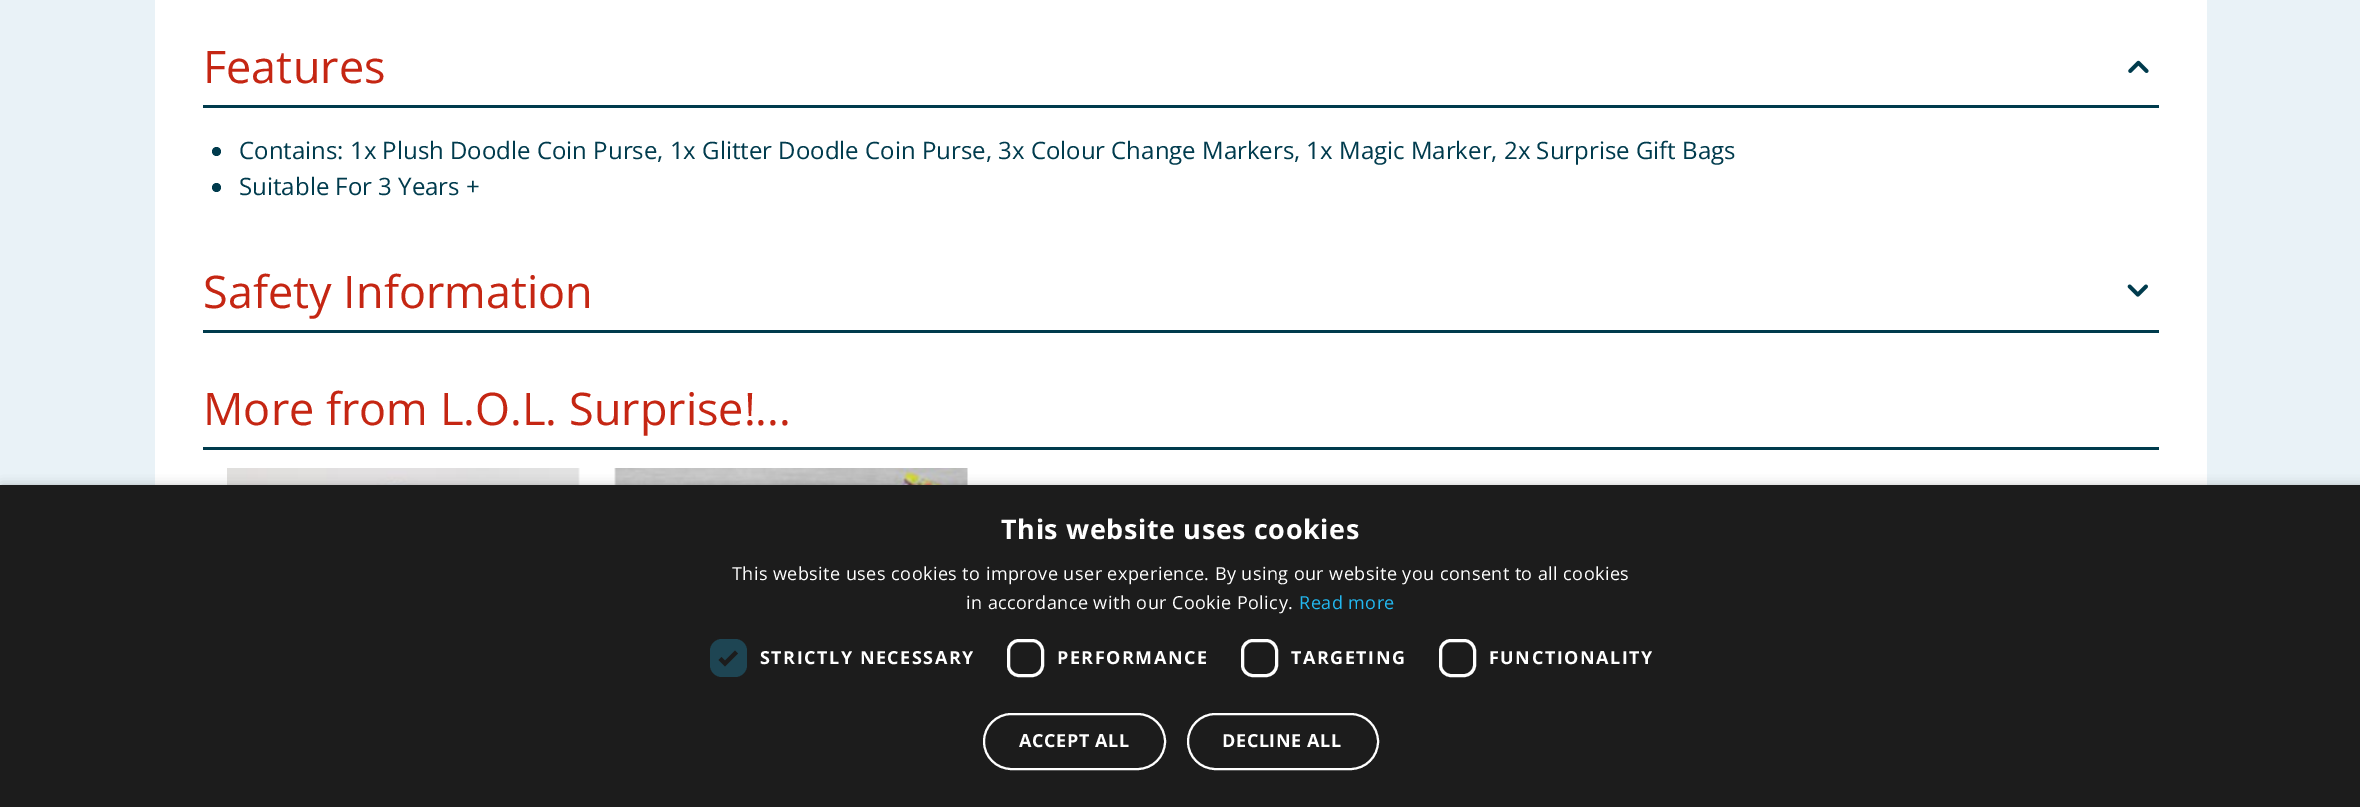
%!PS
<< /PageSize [2360 807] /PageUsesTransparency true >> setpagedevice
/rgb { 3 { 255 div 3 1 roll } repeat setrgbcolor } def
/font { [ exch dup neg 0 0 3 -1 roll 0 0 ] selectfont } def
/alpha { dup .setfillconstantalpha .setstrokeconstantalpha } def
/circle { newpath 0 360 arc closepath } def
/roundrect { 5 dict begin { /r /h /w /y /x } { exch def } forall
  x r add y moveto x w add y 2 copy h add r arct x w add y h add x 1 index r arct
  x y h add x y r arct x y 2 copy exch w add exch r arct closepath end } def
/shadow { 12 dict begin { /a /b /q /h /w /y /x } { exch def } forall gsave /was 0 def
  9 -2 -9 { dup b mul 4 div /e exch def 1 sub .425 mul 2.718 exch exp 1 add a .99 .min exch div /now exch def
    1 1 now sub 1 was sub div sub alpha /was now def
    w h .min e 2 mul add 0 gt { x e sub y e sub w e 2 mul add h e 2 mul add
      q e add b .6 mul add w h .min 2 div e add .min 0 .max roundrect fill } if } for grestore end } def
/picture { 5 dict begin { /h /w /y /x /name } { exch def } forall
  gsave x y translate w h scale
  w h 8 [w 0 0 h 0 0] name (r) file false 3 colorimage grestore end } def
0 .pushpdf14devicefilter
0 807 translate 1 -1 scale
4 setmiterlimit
233 242 247 rgb
0 0 2360 807 rectfill
255 255 255 rgb
155 0 2052 485 rectfill
0 59 77 rgb
203 105 1956 3 rectfill
(img/1.rgb) 2128 60 21 13 picture
216.5 151.5 4.5 circle fill
216.5 187.5 4.5 circle fill
203 330 1956 3 rectfill
(img/2.rgb) 2127 284 21 13 picture
203 447 1956 3 rectfill
(img/3.rgb) 227 468 353 17 picture
(img/4.rgb) 614 468 354 17 picture
0 0 0 rgb
2 488 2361 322 0 6 0.35 shadow
28 28 28 rgb
0 485 2360 322 rectfill
30 69 83 rgb
710 639 37 38 12 roundrect fill
28 28 28 rgb
3.9 setlinewidth
720 658.5 moveto 725 663.5 lineto 736.5 652 lineto stroke
255 255 255 rgb
3 setlinewidth
1008.5 640.5 34 35 10.5 roundrect stroke
1242.5 640.5 34 35 10.5 roundrect stroke
1440.5 640.5 34 35 10.5 roundrect stroke
2 setlinewidth
984 714 181 55 27.5 roundrect stroke
1188 714 190 55 27.5 roundrect stroke
/OpenSans-Regular 45 font
197 38 19 rgb
203 83 moveto (Features) show
/OpenSans-Regular 24 font
0 59 77 rgb
239 159 moveto (Contains: 1x Plush Doodle Coin Purse, 1x Glitter Doodle Coin Purse, 3x Colour Change Markers, 1x Magic Marker, 2x Surprise Gift Bags) show
239 195 moveto (Suitable For 3 Years +) show
/OpenSans-Regular 45 font
197 38 19 rgb
203 308 moveto (Safety Information) show
203 425 moveto (More from L.O.L. Surprise!...) show
/OpenSans-Bold 27 font
255 255 255 rgb
1001 539 moveto 0.6 0 (This website uses cookies) ashow
/OpenSans-Regular 18 font
732 580 moveto 0.45 0 (This website uses cookies to improve user experience. By using our website you consent to all cookies) ashow
966 609 moveto 0.45 0 (in accordance with our Cookie Policy.) ashow
34 184 240 rgb
1299 609 moveto 0.45 0 (Read more) ashow
/OpenSans-Bold 18 font
255 255 255 rgb
760 664 moveto 1.5 0 (STRICTLY NECESSARY) ashow
1057 664 moveto 1.5 0 (PERFORMANCE) ashow
1291 664 moveto 1.5 0 (TARGETING) ashow
1489 664 moveto 1.5 0 (FUNCTIONALITY) ashow
1019 747 moveto 0.6 0 (ACCEPT ALL) ashow
1222 747 moveto 0.6 0 (DECLINE ALL) ashow
.poppdf14devicefilter showpage
